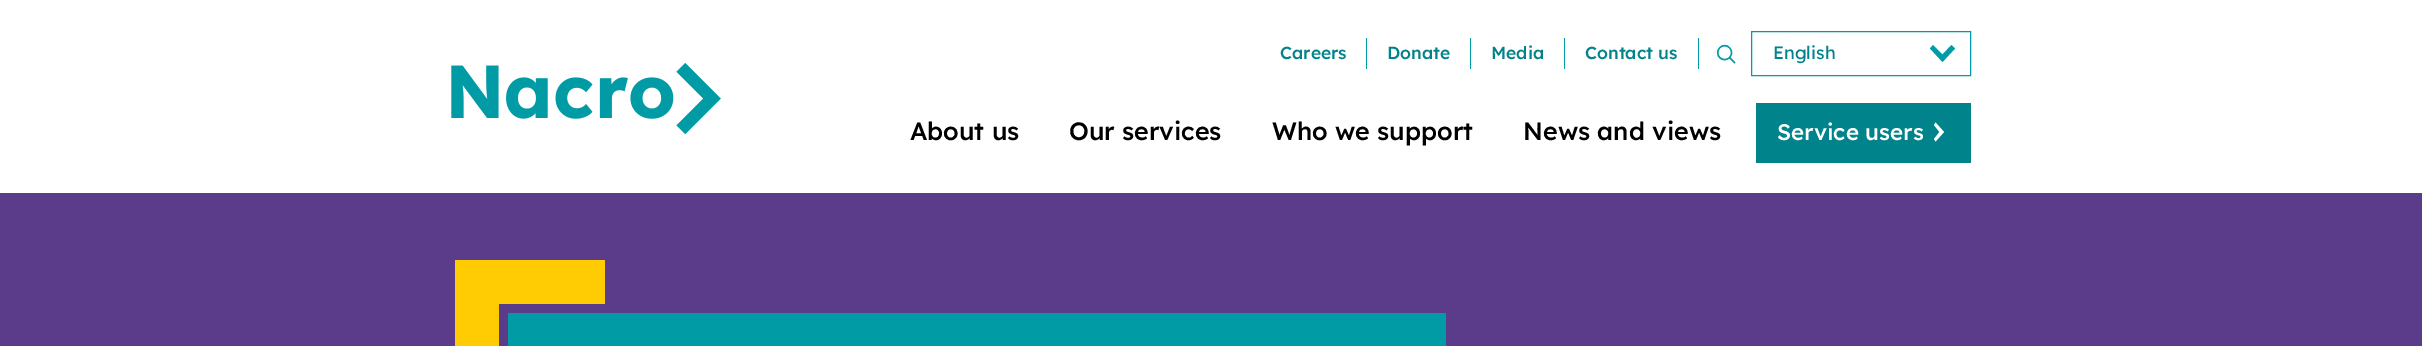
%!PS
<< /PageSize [2422 346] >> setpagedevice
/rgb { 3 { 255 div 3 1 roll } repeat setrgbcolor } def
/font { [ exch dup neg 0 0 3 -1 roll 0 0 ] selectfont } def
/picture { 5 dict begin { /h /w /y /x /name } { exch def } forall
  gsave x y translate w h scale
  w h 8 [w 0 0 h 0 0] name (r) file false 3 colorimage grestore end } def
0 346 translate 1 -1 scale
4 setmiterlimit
91 60 138 rgb
0 0 2422 346 rectfill
[
  [0 0 2422 193 255 255 255]
  [1366 38 1 31 0 155 164]
  [1470 38 1 31 0 155 164]
  [1564 38 1 31 0 155 164]
  [1698 38 1 31 0 155 164]
] { aload pop rgb rectfill } forall
(img/1.rgb) 1716 44 20 20 picture
1933 45 moveto 1930 48.5 lineto 1942.5 62 lineto 1955 48.5 lineto 1951.5 45 lineto 1942.5 54.5 lineto closepath fill
1751.5 31.5 219 44 rectstroke
(img/2.rgb) 451 63 270 72 picture
0 131 138 rgb
1756 103 215 60 rectfill
255 255 255 rgb
1944 132 moveto 1935.5 122.5 lineto 1934 125 lineto 1939.5 132 lineto 1934 139 lineto 1935.5 141.5 lineto closepath fill
0 155 164 rgb
508 313 938 33 rectfill
gsave
455 260 150 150 rectclip
255 203 3 rgb
455 260 moveto 455 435 lineto 499 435 lineto 499 304 lineto 630 304 lineto 630 260 lineto closepath fill
grestore
/Lexend-Medium 17.5 font
0 131 138 rgb
[
  [(Careers) 1280 59]
  [(Donate) 1387 59]
  [(Media) 1491 59]
  [(Contact us) 1585 59]
] { aload pop moveto show } forall
/Lexend-Regular 18 font
1773 59 moveto (English) show
/Lexend-Medium 25 font
0 0 0 rgb
[
  [(About us) 910 140]
  [(Our services) 1069 140]
  [(Who we support) 1272 140]
  [(News and views) 1523 140]
] { aload pop moveto show } forall
/Lexend-Medium 22.5 font
255 255 255 rgb
1777 140 moveto (Service users) show
showpage
